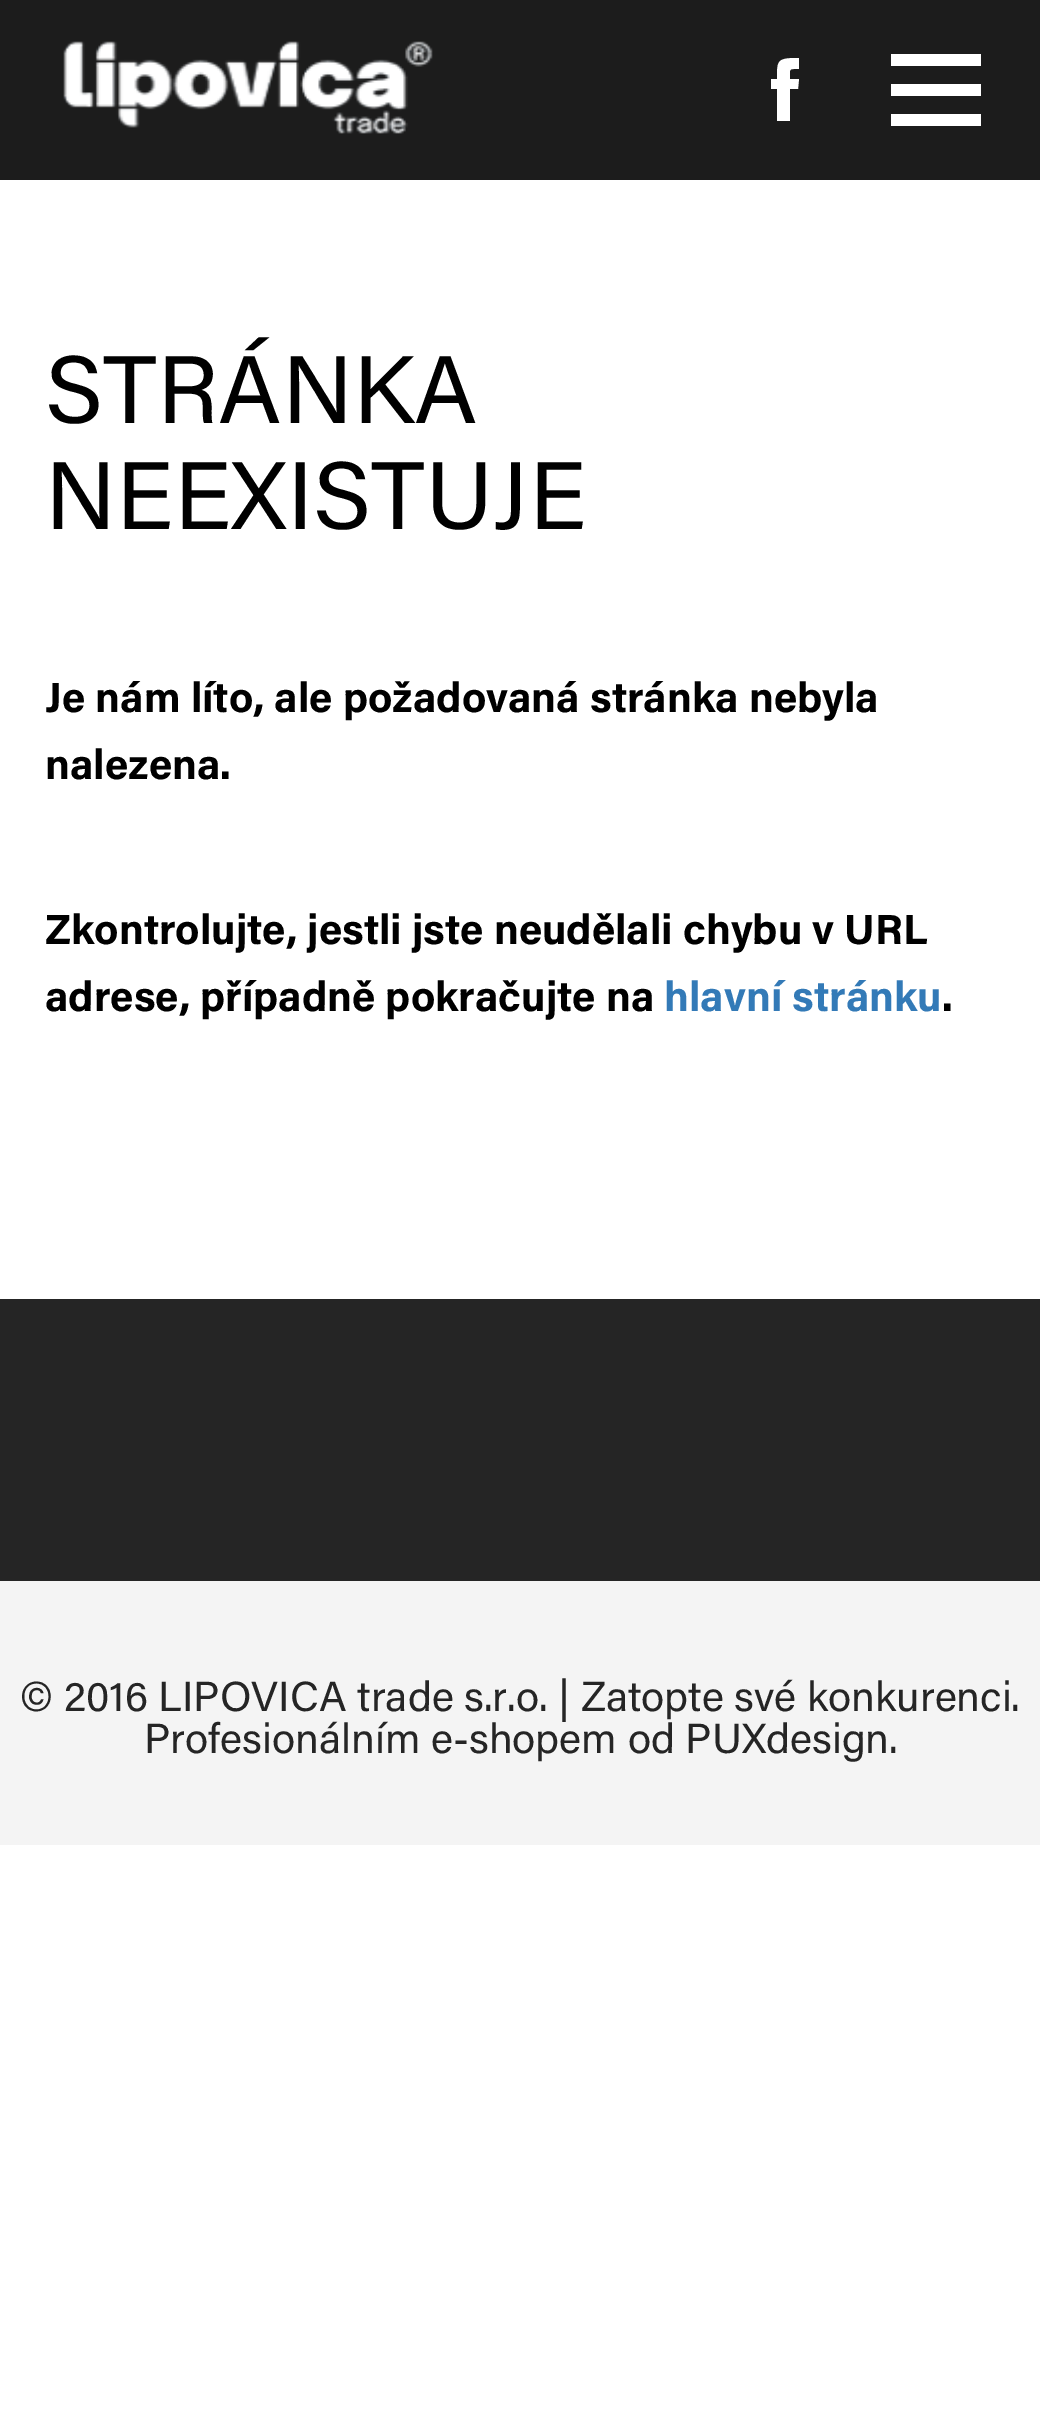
%!PS
<< /PageSize [1040 2425] >> setpagedevice
/rgb { 3 { 255 div 3 1 roll } repeat setrgbcolor } def
/font { [ exch dup neg 0 0 3 -1 roll 0 0 ] selectfont } def
/picture { 5 dict begin { /h /w /y /x /name } { exch def } forall
  gsave x y translate w h scale
  w h 8 [w 0 0 h 0 0] name (r) file false 3 colorimage grestore end } def
0 2425 translate 1 -1 scale
4 setmiterlimit
255 255 255 rgb
0 0 1040 2425 rectfill
28 28 28 rgb
0 0 1040 180 rectfill
(img/1.rgb) 63 41 370 93 picture
255 255 255 rgb
799 69 moveto 788 69 790 68 790 79 curveto 799 79 lineto 798 89 lineto 790 89 lineto 790 121 lineto 777 121 lineto 777 89 lineto 771 89 lineto 771 79 lineto 777 79 lineto 777 60 777 58 799 58 curveto closepath fill
[
  [891 54 90 12 255 255 255]
  [891 84 90 12 255 255 255]
  [891 114 90 12 255 255 255]
  [0 1299 1040 282 37 37 37]
  [0 1581 1040 264 244 244 244]
] { aload pop rgb rectfill } forall
/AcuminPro-Regular 96 font
0 0 0 rgb
45 423 moveto (STRÁNKA) show
45 529 moveto (NEEXISTUJE) show
/AcuminPro-Bold 42 font
[
  [(Je nám líto, ale požadovaná stránka nebyla) 45 712]
  [(nalezena.) 45 779]
  [(Zkontrolujte, jestli jste neudělali chybu v URL) 45 944]
  [(adrese, případně pokračujte na) 45 1011]
] { aload pop moveto show } forall
51 122 183 rgb
664 1011 moveto (hlavní stránku) show
0 0 0 rgb
942 1011 moveto (.) show
/AcuminPro-Regular 42 font
37 37 37 rgb
20 1711 moveto (© 2016 LIPOVICA trade s.r.o. | Zatopte své konkurenci.) show
144 1753 moveto (Profesionálním e-shopem od PUXdesign.) show
showpage
